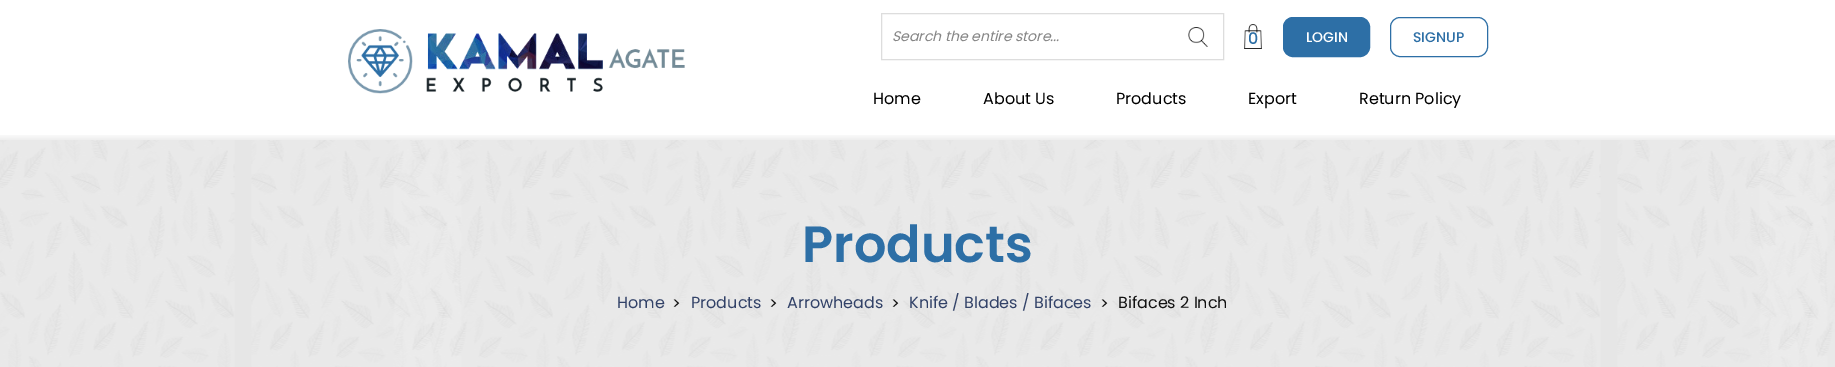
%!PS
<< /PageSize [1835 367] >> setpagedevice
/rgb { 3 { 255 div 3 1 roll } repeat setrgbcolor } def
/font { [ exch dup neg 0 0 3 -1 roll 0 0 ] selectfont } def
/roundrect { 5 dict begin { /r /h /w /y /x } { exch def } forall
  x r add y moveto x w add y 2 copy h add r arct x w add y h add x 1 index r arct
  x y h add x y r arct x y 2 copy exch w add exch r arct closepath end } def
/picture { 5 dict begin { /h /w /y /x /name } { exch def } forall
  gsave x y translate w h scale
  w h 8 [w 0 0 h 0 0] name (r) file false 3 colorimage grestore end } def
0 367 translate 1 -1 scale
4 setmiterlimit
255 255 255 rgb
0 0 1835 367 rectfill
(img/1.rgb) 0 135 1835 5 picture
(img/2.rgb) 348 29 337 65 picture
221 221 221 rgb
881.5 13.5 342 46 rectstroke
(img/3.rgb) 1188 27 20 20 picture
(img/4.rgb) 1244 24 18 25 picture
45 111 166 rgb
1283.5 17.5 86 39 9.5 roundrect gsave fill grestore
stroke
1390.5 17.5 97 39 9.5 roundrect stroke
(img/5.rgb) 0 140 1835 227 picture
/Poppins-Italic 14 font
133 133 133 rgb
892 41 moveto (Search the entire store...) show
/Poppins-Medium 16 font
45 111 166 rgb
1248 44 moveto (0) show
/Poppins-Medium 14 font
255 255 255 rgb
1306 42 moveto (LOGIN) show
45 111 166 rgb
1413 42 moveto (SIGNUP) show
/Poppins-Regular 16 font
0 0 0 rgb
[
  [(Home) 873 104]
  [(About Us) 983 104]
  [(Products) 1116 104]
  [(Export) 1248 104]
  [(Return Policy) 1359 104]
] { aload pop moveto show } forall
/Poppins-SemiBold 51 font
45 111 166 rgb
802 262 moveto (Products) show
/Poppins-Regular 16 font
50 66 104 rgb
617 308 moveto (Home) show
18 18 18 rgb
672 309 moveto (>) show
50 66 104 rgb
691 308 moveto (Products) show
18 18 18 rgb
769 309 moveto (>) show
50 66 104 rgb
787 308 moveto (Arrowheads) show
18 18 18 rgb
891 309 moveto (>) show
50 66 104 rgb
909 308 moveto (Knife / Blades / Bifaces) show
18 18 18 rgb
1100 309 moveto (>) show
1118 308 moveto (Bifaces 2 Inch) show
showpage
